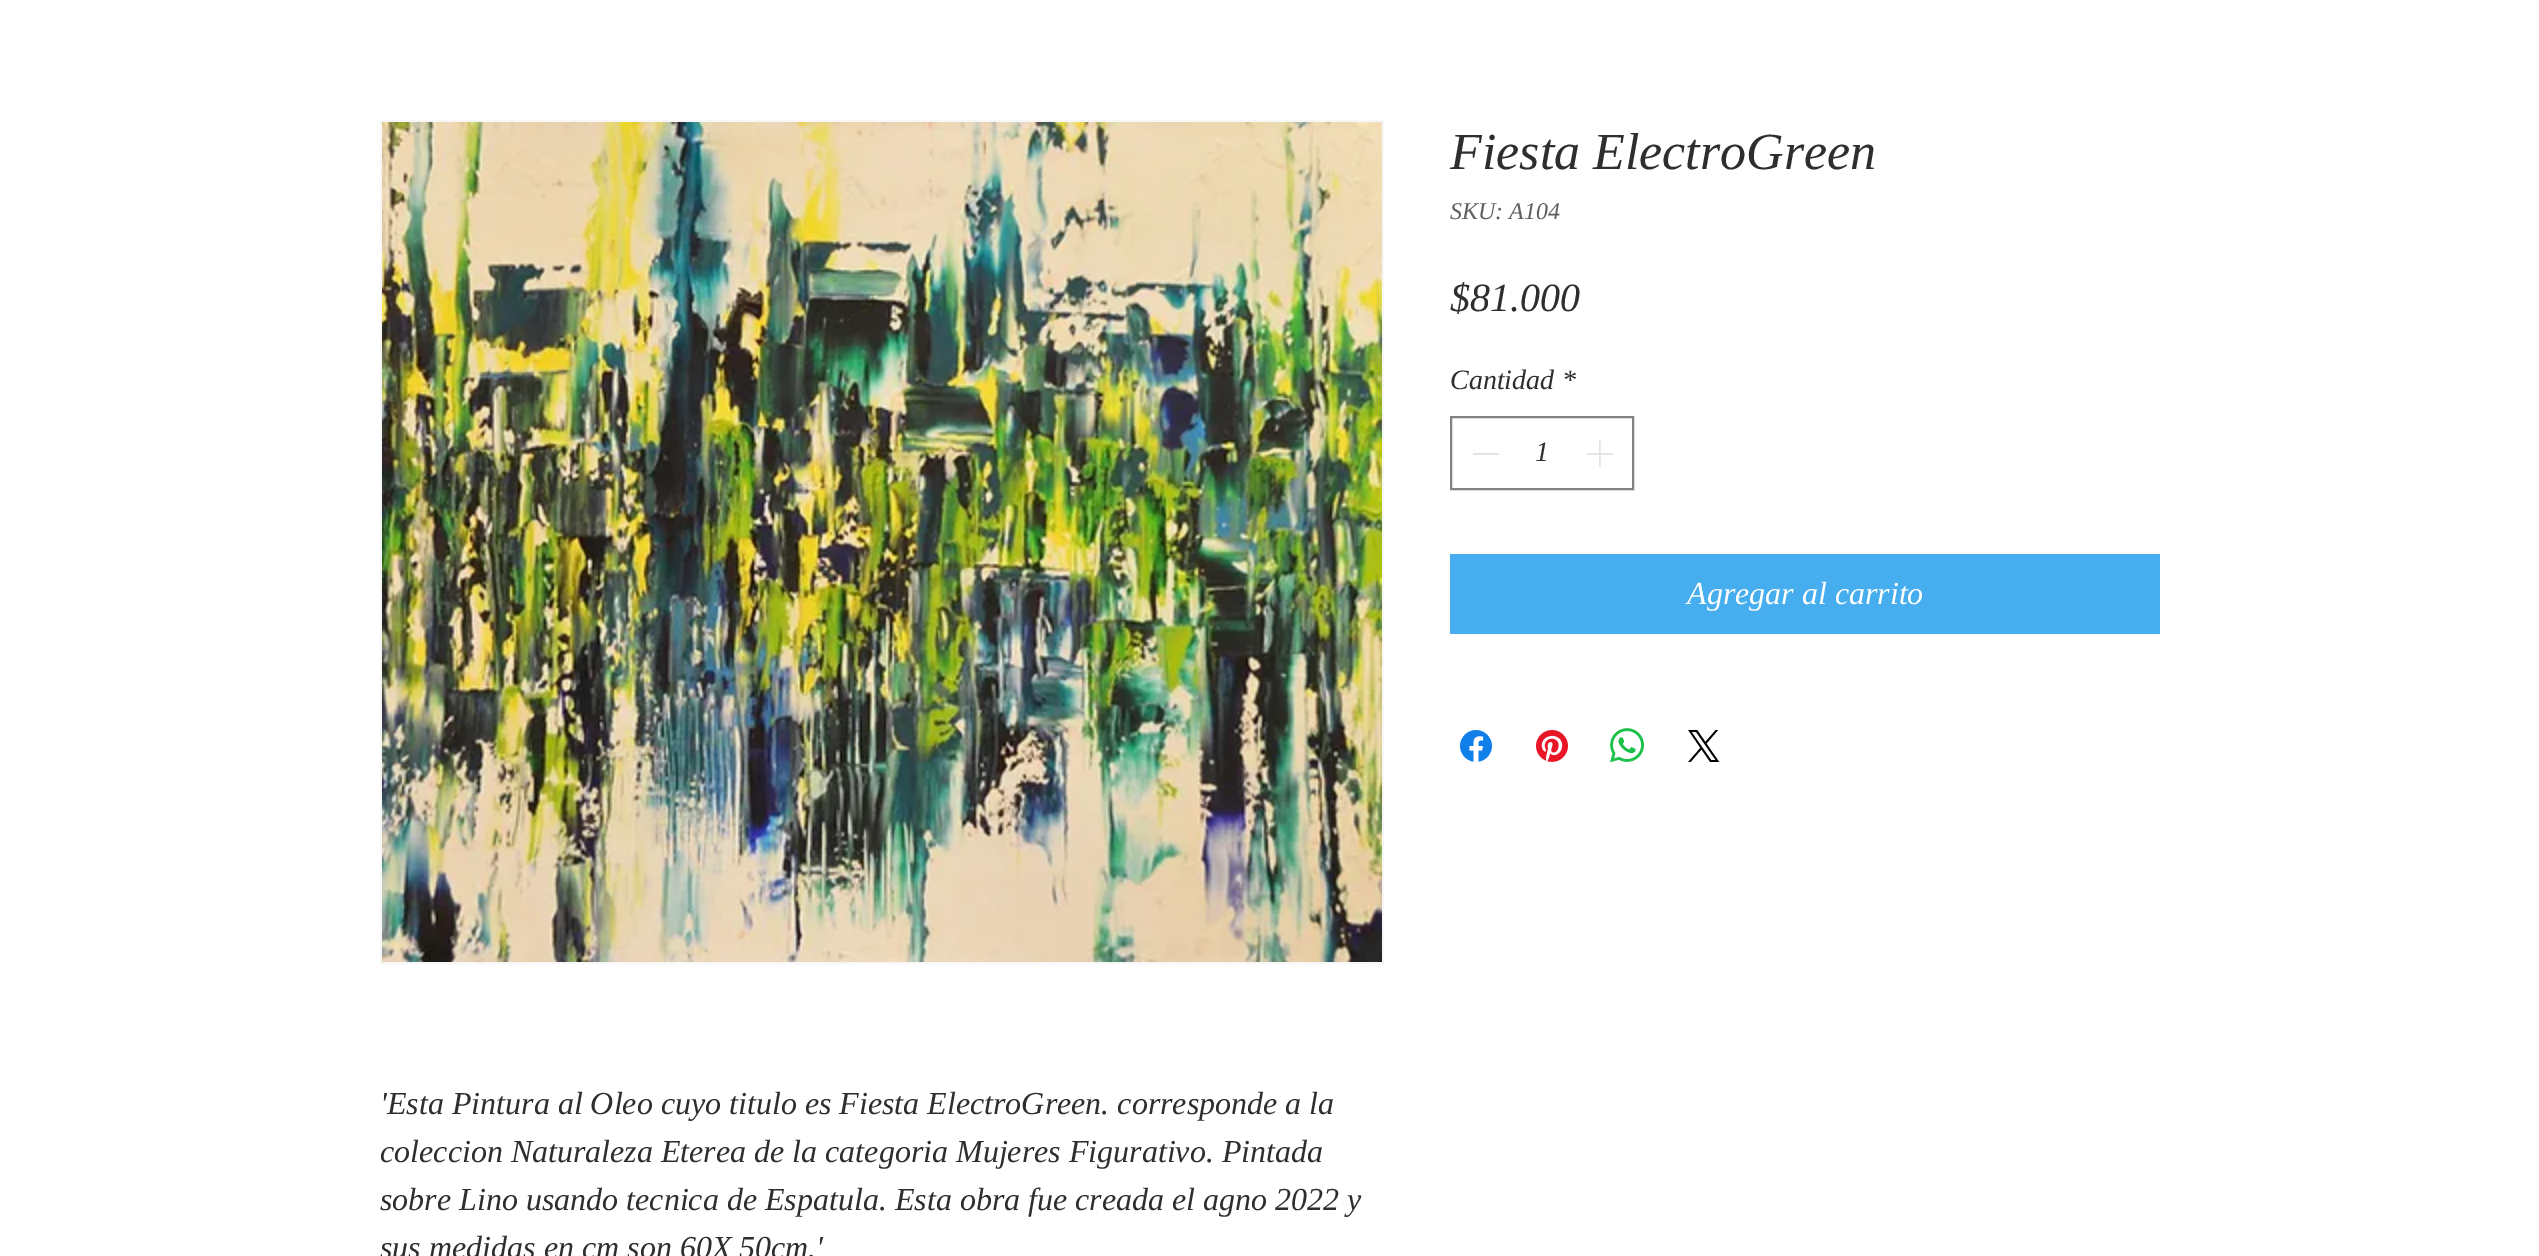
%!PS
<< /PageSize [2539 1256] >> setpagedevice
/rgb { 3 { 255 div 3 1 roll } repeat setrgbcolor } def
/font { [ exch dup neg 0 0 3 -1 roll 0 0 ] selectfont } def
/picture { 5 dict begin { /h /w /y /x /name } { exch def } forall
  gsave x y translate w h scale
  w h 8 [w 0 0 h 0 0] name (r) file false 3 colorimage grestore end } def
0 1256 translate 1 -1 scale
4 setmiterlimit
255 255 255 rgb
0 0 2539 1256 rectfill
130 130 130 rgb
2 setlinewidth
1451 417 182 72 rectstroke
227 227 227 rgb
1473 453 26 2 rectfill
(img/1.rgb) 1586 440 27 27 picture
70 174 238 rgb
1450 554 710 80 rectfill
(img/2.rgb) 1460 730 32 32 picture
(img/3.rgb) 1536 730 32 32 picture
(img/4.rgb) 1610 728 34 35 picture
(img/5.rgb) 1688 730 32 32 picture
247 247 247 rgb
381 121 1002 842 rectstroke
(img/6.rgb) 382 122 1000 840 picture
/LiberationSerif-Italic 52 font
47 46 46 rgb
1450 169 moveto (Fiesta ElectroGreen) show
/LiberationSerif-Italic 24 font
96 94 94 rgb
1450 219 moveto (SKU: A104) show
/LiberationSerif-Italic 40 font
47 46 46 rgb
1450 311 moveto ($81.000) show
/LiberationSerif-Italic 28 font
[
  [(Cantidad) 1450 389]
  [(*) 1562 389]
  [(1) 1535 461]
] { aload pop moveto show } forall
/LiberationSerif-Italic 32 font
255 255 255 rgb
1687 604 moveto (Agregar al carrito) show
47 46 46 rgb
[
  [('Esta Pintura al Oleo cuyo titulo es Fiesta ElectroGreen. corresponde a la) 380 1114]
  [(coleccion Naturaleza Eterea de la categoria Mujeres Figurativo. Pintada) 380 1162]
  [(sobre Lino usando tecnica de Espatula. Esta obra fue creada el agno 2022 y) 380 1210]
  [(sus medidas en cm son 60X 50cm.') 380 1258]
] { aload pop moveto show } forall
showpage
